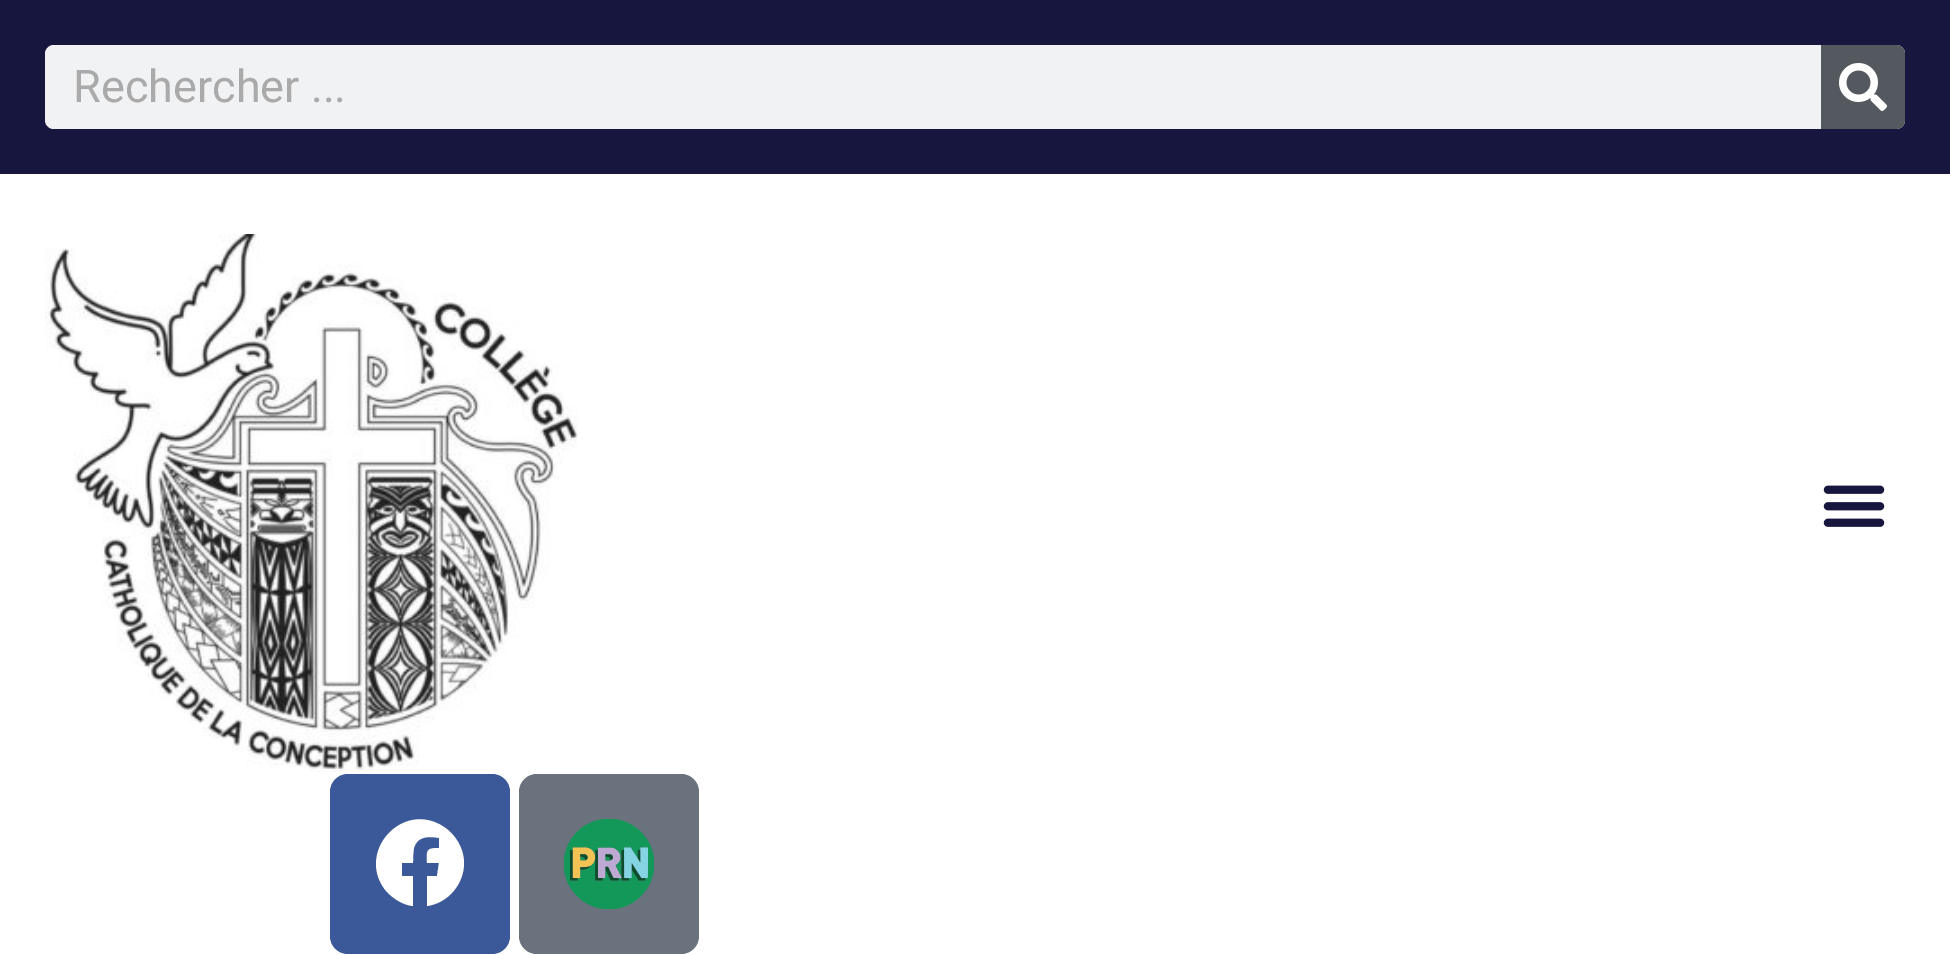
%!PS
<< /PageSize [1950 955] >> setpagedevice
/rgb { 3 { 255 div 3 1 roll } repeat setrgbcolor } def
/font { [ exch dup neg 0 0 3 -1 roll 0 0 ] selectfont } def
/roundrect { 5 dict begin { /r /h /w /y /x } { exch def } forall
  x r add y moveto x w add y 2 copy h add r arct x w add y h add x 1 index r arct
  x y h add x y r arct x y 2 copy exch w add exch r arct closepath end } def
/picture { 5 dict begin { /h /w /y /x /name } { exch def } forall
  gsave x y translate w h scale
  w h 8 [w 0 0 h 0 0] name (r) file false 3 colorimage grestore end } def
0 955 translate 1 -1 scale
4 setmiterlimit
255 255 255 rgb
0 0 1950 955 rectfill
22 22 63 rgb
0 0 1950 174 rectfill
241 242 243 rgb
45 45 1860 84 9 roundrect fill
84 89 95 rgb
1821 45 moveto 1896 45 lineto 1901 45 1905 49 1905 54 curveto 1905 120 lineto 1905 125 1901 129 1896 129 curveto 1821 129 lineto closepath fill
(img/1.rgb) 1839 63 48 48 picture
(img/2.rgb) 45 234 533 538 picture
(img/3.rgb) 1823 485 62 42 picture
59 89 152 rgb
330 774 180 180 18 roundrect fill
255 255 255 rgb
464 863 moveto 464 884 448 903 427 906 curveto 427 876 lineto 437 876 lineto 439 863 lineto 427 863 lineto 427 851 425 848 439 848 curveto 439 838 lineto 429 836 417 836 414 848 curveto 413 853 413 858 413 863 curveto 402 863 lineto 402 876 lineto 413 876 lineto 413 906 lineto 403 905 394 899 387 892 curveto 354 854 402 799 444 827 curveto 456 835 464 849 464 863 curveto closepath fill
105 114 125 rgb
519 774 180 180 18 roundrect fill
(img/4.rgb) 564 819 90 90 picture
/Roboto-Regular 45 font
170 170 170 rgb
73 102 moveto (Rechercher ...) show
showpage
